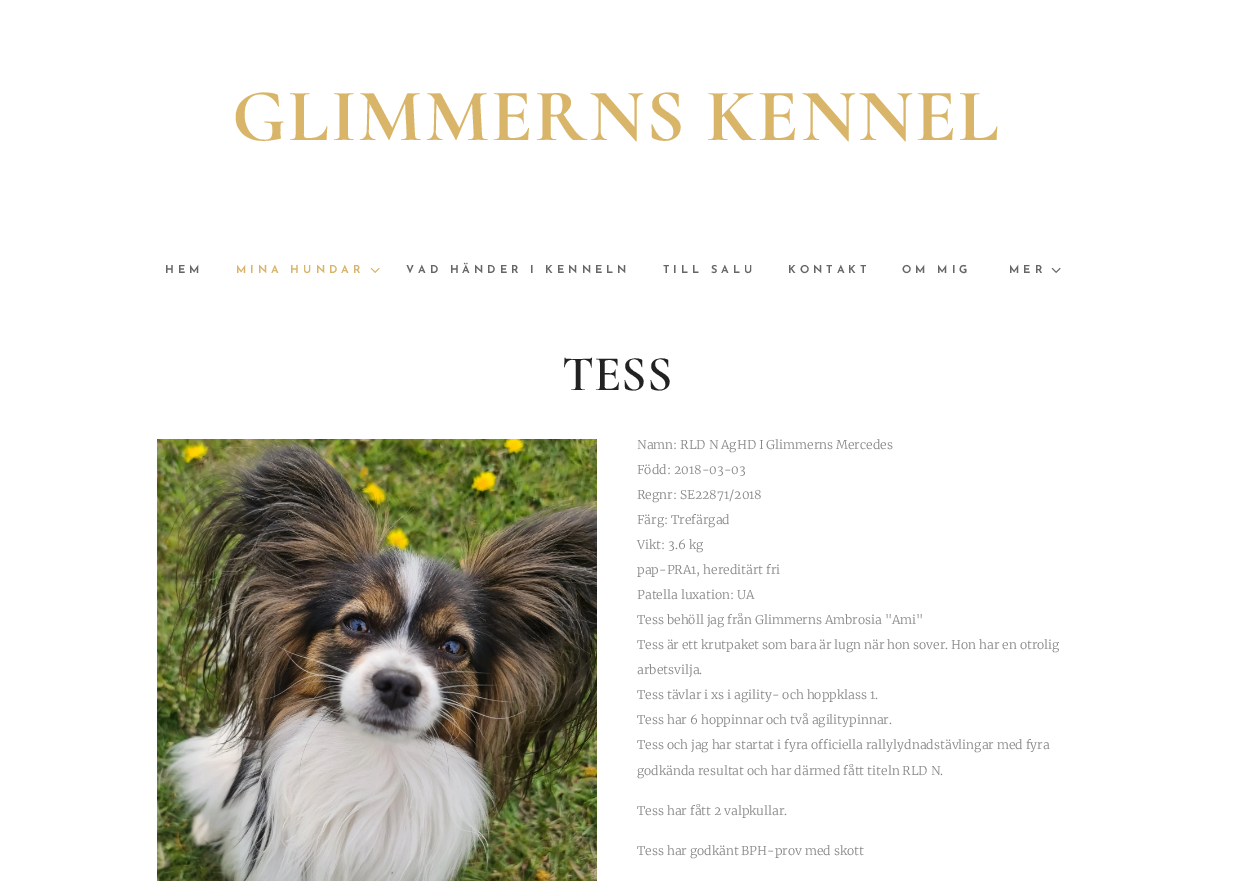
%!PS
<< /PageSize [1234 881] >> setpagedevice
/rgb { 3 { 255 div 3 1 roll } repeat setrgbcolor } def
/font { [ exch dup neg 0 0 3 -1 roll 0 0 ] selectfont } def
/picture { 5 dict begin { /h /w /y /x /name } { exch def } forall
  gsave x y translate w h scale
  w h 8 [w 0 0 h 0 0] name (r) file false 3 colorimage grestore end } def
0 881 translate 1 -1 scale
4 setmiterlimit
255 255 255 rgb
0 0 1234 881 rectfill
(img/1.rgb) 370 267 10 6 picture
(img/2.rgb) 1051 267 10 6 picture
(img/3.rgb) 157 439 440 442 picture
/Cormorant-Bold 75 font
217 181 105 rgb
232 140 moveto 2 0 (GLIMMERNS KENNEL) ashow
/JosefinSans-SemiBold 11 font
102 102 102 rgb
165 273 moveto 4 0 (HEM) ashow
217 181 105 rgb
236 273 moveto 4 0 (MINA HUNDAR) ashow
102 102 102 rgb
406 273 moveto 4 0 (VAD HÄNDER I KENNELN) ashow
663 273 moveto 4 0 (TILL SALU) ashow
788 273 moveto 4 0 (KONTAKT) ashow
902 273 moveto 4 0 (OM MIG) ashow
1009 273 moveto 4 0 (MER) ashow
/Cormorant-SemiBold 50 font
34 34 34 rgb
562 390 moveto (TESS) show
/Merriweather-Light 12.15 font
136 136 136 rgb
[
  [(Namn: RLD N AgHD I Glimmerns Mercedes) 637 449]
  [(Född: 2018-03-03) 637 474]
  [(Regnr: SE22871/2018) 637 499]
  [(Färg: Trefärgad) 637 524]
  [(Vikt: 3.6 kg) 637 549]
  [(pap-PRA1, hereditärt fri) 637 574]
  [(Patella luxation: UA) 637 599]
  [(Tess behöll jag från Glimmerns Ambrosia "Ami") 637 624]
  [(Tess är ett krutpaket som bara är lugn när hon sover. Hon har en otrolig) 637 649]
  [(arbetsvilja.) 637 674]
  [(Tess tävlar i xs i agility- och hoppklass 1.) 637 699]
  [(Tess har 6 hoppinnar och två agilitypinnar.) 637 724]
  [(Tess och jag har startat i fyra officiella rallylydnadstävlingar med fyra) 637 749]
  [(godkända resultat och har därmed fått titeln RLD N.) 637 775]
  [(Tess har fått 2 valpkullar.) 637 815]
  [(Tess har godkänt BPH-prov med skott) 637 855]
] { aload pop moveto show } forall
showpage
